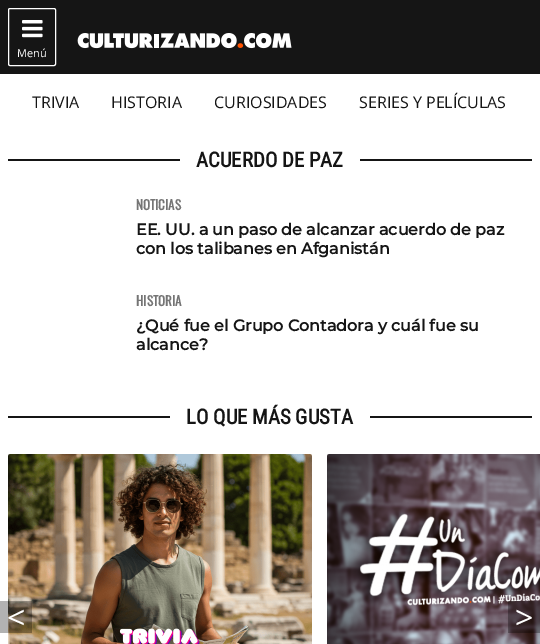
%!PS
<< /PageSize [540 644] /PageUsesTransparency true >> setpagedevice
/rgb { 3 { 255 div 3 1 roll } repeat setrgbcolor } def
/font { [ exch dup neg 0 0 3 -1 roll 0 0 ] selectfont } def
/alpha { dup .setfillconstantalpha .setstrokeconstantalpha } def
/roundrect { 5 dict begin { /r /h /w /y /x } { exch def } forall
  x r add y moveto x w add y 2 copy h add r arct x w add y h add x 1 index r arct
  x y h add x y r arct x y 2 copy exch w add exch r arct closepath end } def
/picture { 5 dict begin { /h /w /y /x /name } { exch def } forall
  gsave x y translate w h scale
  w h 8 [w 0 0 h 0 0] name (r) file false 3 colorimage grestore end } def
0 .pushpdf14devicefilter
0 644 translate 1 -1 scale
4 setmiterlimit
255 255 255 rgb
0 0 540 644 rectfill
21 21 21 rgb
0 0 540 74 rectfill
(img/1.rgb) 77 33 215 16 picture
255 255 255 rgb
8.5 8.5 47 57 1.5 roundrect stroke
(img/2.rgb) 22 20 21 18 picture
[
  [8 159 524 2 21 21 21]
  [180 159 180 2 255 255 255]
  [8 416 524 2 21 21 21]
  [170 416 200 2 255 255 255]
] { aload pop rgb rectfill } forall
(img/3.rgb) 8 454 304 190 picture
(img/4.rgb) 327 454 213 190 picture
0.3 alpha
0 0 0 rgb
0 601 32 32 rectfill
508 601 32 32 rectfill
/OpenSans-Regular 11 font
1 alpha
255 255 255 rgb
17 57 moveto (Menú) show
/OpenSans-Regular 16 font
21 21 21 rgb
[
  [(TRIVIA) 32 108]
  [(HISTORIA) 111 108]
  [(CURIOSIDADES) 214 108]
  [(SERIES Y PELÍCULAS) 359 108]
] { aload pop moveto show } forall
/RobotoCondensed-Bold 20.75 font
196 167 moveto (ACUERDO DE PAZ) show
/Oswald-Bold 13 font
117 117 117 rgb
136 210 moveto (NOTICIAS) show
/Montserrat-Bold 16 font
21 21 21 rgb
136 235 moveto (EE. UU. a un paso de alcanzar acuerdo de paz) show
136 254 moveto (con los talibanes en Afganistán) show
/Oswald-Bold 13 font
117 117 117 rgb
136 306 moveto (HISTORIA) show
/Montserrat-Bold 16 font
21 21 21 rgb
136 331 moveto (¿Qué fue el Grupo Contadora y cuál fue su) show
136 350 moveto (alcance?) show
/RobotoCondensed-Bold 20.75 font
186 424 moveto (LO QUE MÁS GUSTA) show
/OpenSans-Regular 32 font
255 255 255 rgb
7 629 moveto (<) show
515 629 moveto (>) show
.poppdf14devicefilter showpage
